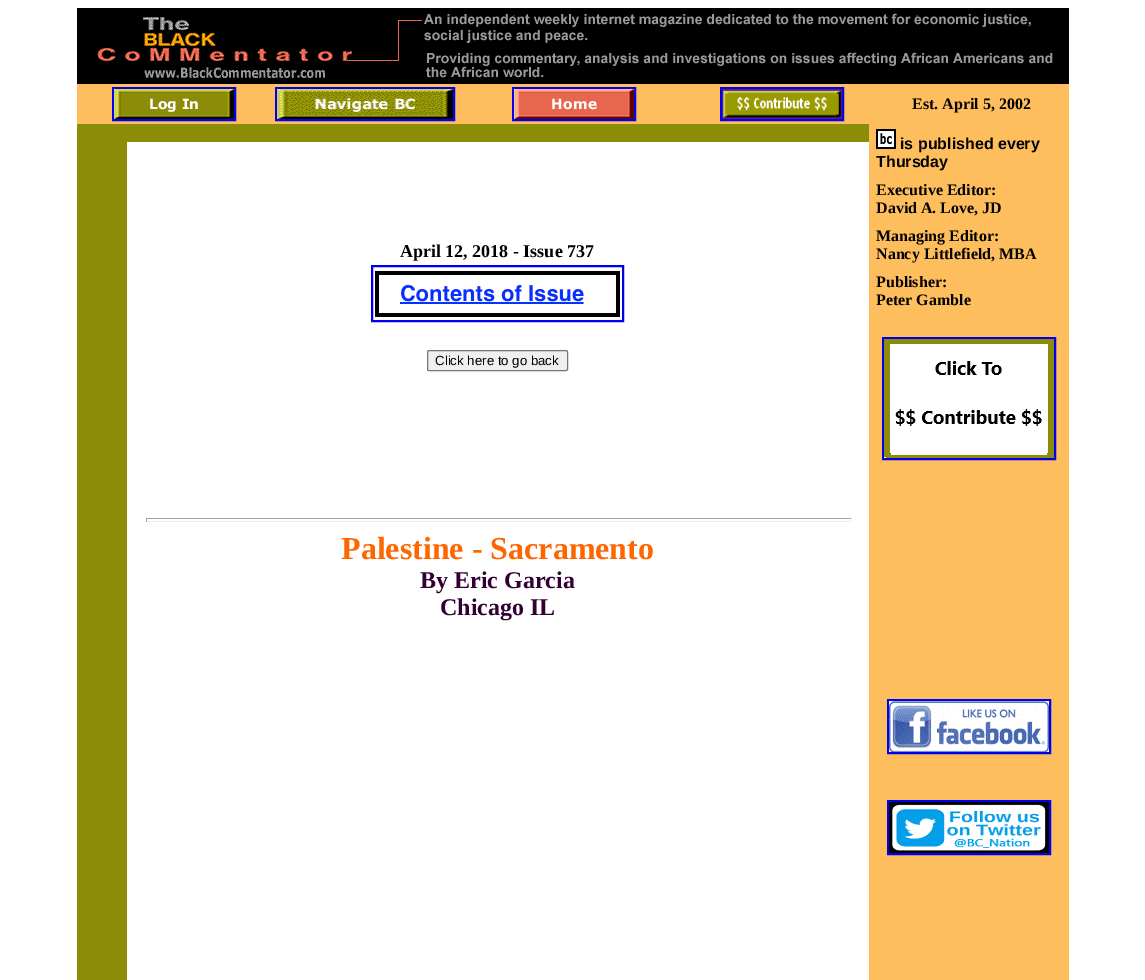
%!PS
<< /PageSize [1145 980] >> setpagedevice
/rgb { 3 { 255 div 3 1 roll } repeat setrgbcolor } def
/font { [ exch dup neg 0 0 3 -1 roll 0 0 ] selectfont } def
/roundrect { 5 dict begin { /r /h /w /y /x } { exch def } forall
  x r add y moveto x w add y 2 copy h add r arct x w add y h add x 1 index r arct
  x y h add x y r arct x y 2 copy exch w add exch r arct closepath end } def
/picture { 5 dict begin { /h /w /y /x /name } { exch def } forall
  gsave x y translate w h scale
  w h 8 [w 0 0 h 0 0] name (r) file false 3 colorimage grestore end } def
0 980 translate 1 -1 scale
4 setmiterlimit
255 255 255 rgb
0 0 1145 980 rectfill
0 0 0 rgb
77 8 992 76 rectfill
(img/1.rgb) 97 13 956 65 picture
255 190 94 rgb
77 84 992 40 rectfill
0 0 238 rgb
2 setlinewidth
113 88 122 32 rectstroke
(img/2.rgb) 114 89 120 30 picture
276 88 178 32 rectstroke
(img/3.rgb) 277 89 176 30 picture
513 88 122 32 rectstroke
(img/4.rgb) 514 89 120 30 picture
721 88 122 32 rectstroke
(img/5.rgb) 722 89 120 30 picture
140 140 9 rgb
77 124 50 856 rectfill
255 190 94 rgb
869 124 200 856 rectfill
(img/6.rgb) 876 129 20 20 picture
0 0 238 rgb
883 338 172 121 rectstroke
(img/7.rgb) 884 339 170 119 picture
888 700 162 53 rectstroke
(img/8.rgb) 889 701 160 51 picture
888 801 162 53 rectstroke
(img/9.rgb) 889 802 160 51 picture
140 140 9 rgb
127 124 742 18 rectfill
0 0 238 rgb
372 266 251 55 rectstroke
(img/10.rgb) 375 271 245 46 picture
239 239 239 rgb
427.5 350.5 140 20 1.5 roundrect gsave fill grestore
118 118 118 rgb
1 setlinewidth
stroke
[
  [146 518 706 1 159 159 159]
  [851 518 1 4 238 238 238]
  [146 521 706 1 238 238 238]
  [146 518 1 4 159 159 159]
] { aload pop rgb rectfill } forall
/LiberationSerif-Bold 16 font
0 0 0 rgb
912 109 moveto (Est. April 5, 2002) show
/LiberationSans-Bold 16 font
900 149 moveto (is published every) show
876 167 moveto (Thursday) show
/LiberationSerif-Bold 16 font
[
  [(Executive Editor:) 876 195]
  [(David A. Love, JD) 876 213]
  [(Managing Editor:) 876 241]
  [(Nancy Littlefield, MBA) 876 259]
  [(Publisher:) 876 287]
  [(Peter Gamble) 876 305]
] { aload pop moveto show } forall
/LiberationSerif-Bold 18 font
400 257 moveto (April 12, 2018 - Issue 737) show
/LiberationSans-Regular 13.25 font
435 365 moveto (Click here to go back) show
/LiberationSerif-Bold 32 font
255 102 0 rgb
341 559 moveto (Palestine - Sacramento) show
/LiberationSerif-Bold 24 font
51 0 51 rgb
420 588 moveto (By Eric Garcia) show
440 615 moveto (Chicago IL) show
showpage
